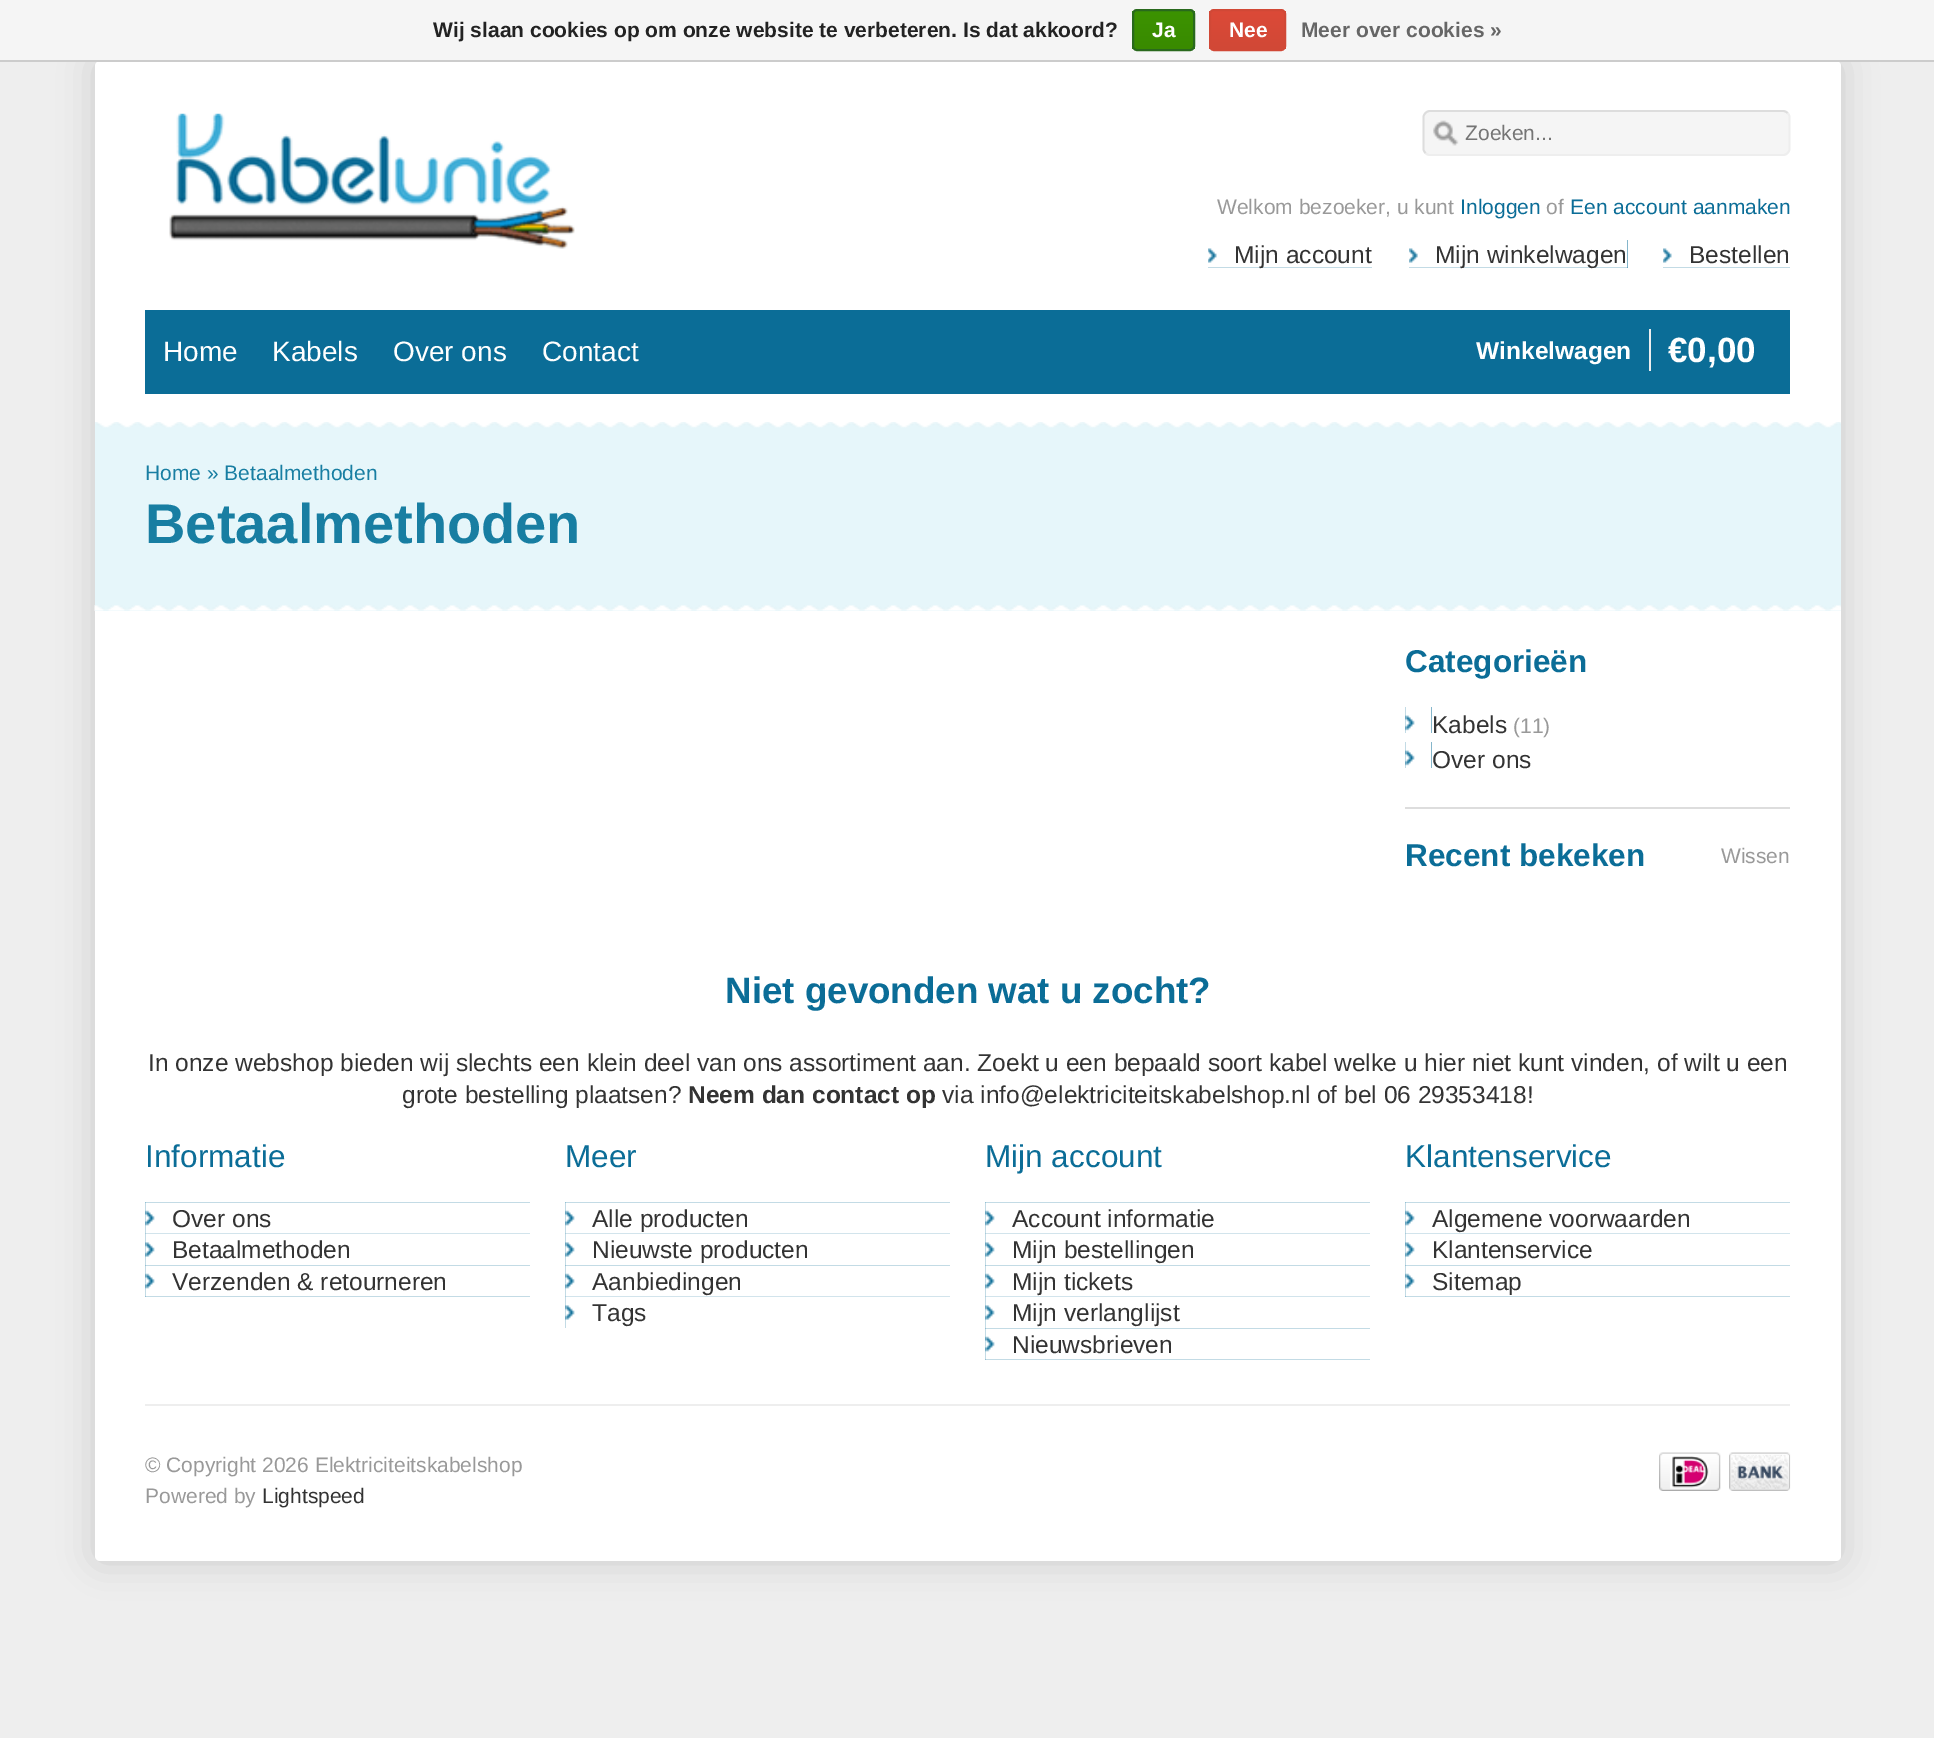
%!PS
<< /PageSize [1934 1738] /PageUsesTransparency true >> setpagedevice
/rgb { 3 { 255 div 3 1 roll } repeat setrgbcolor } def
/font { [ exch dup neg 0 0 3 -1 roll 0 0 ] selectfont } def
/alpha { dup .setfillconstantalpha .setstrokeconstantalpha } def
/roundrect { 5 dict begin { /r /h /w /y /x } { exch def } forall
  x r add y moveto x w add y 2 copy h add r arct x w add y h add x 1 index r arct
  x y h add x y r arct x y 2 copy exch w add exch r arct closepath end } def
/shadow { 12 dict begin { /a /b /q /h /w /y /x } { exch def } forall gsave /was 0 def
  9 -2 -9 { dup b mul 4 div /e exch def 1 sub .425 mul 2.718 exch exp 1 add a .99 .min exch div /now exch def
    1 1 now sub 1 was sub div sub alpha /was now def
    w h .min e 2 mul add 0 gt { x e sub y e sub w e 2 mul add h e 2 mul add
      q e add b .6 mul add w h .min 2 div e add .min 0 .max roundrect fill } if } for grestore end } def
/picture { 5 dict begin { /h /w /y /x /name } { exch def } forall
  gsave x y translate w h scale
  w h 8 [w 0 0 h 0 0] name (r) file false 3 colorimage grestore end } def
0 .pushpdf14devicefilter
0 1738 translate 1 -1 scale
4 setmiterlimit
238 238 238 rgb
0 0 1934 1738 rectfill
0 0 0 rgb
95 61 1746 1500 5 17.5 0.15 shadow
245 245 245 rgb
0 0 1934 60 rectfill
255 255 255 rgb
95 61 1746 1500 5 roundrect fill
204 204 204 rgb
0 60 1934 2 rectfill
gsave
1132 9 63 42 5 roundrect clip newpath
gsave 1132 11 moveto 1195 11 lineto 1195 49 lineto 1132 49 lineto closepath clip newpath
<< /ShadingType 2 /ColorSpace /DeviceRGB /Coords [1164 10 1164 49] /Extend [true true] /Function << /FunctionType 2 /Domain [0 1] /C0 [0.235 0.576 0] /C1 [0.224 0.541 0] /N 1 >> >> shfill grestore
grestore
41 105 29 rgb
2 setlinewidth
1133 10 61 40 4 roundrect stroke
gsave
1209 9 77 42 5 roundrect clip newpath
gsave 1209 11 moveto 1286 11 lineto 1286 49 lineto 1209 49 lineto closepath clip newpath
<< /ShadingType 2 /ColorSpace /DeviceRGB /Coords [1248 10 1248 49] /Extend [true true] /Function << /FunctionType 2 /Domain [0 1] /C0 [0.863 0.29 0.22] /C1 [0.82 0.282 0.212] /N 1 >> >> shfill grestore
grestore
209 72 54 rgb
1210 10 75 40 4 roundrect stroke
(img/1.rgb) 169 113 406 136 picture
245 245 245 rgb
1423 110 367 46 7 roundrect fill
(img/2.rgb) 1433 120 26 26 picture
238 238 238 rgb
1.8 setlinewidth
1787.5 113 moveto 1788.5 114 1789.5 115.5 1789.5 117 curveto 1789.5 149 lineto 1789.5 150.5 1788.5 152 1787.5 153 curveto 1786.5 154 1785 155 1783 155 curveto 1430 155 lineto 1428 155 1426.5 154 1425.5 153 curveto stroke
221 221 221 rgb
1425.5 153 moveto 1424.5 152 1423.5 150.5 1423.5 149 curveto 1423.5 117 lineto 1423.5 115.5 1424.5 114 1425.5 113 curveto 1426.5 112 1428 111 1430 111 curveto 1783 111 lineto 1785 111 1786.5 112 1787.5 113 curveto stroke
11 109 151 rgb
1208 248 164 20 rectfill
(img/3.rgb) 1208 240 164 28 picture
1409 240 219 28 rectfill
(img/4.rgb) 1409 240 219 28 picture
1663 248 127 20 rectfill
(img/5.rgb) 1663 240 127 28 picture
[
  [145 310 1645 84 11 109 151]
  [1649 329 2 42 238 238 238]
  [95 422 1746 189 230 246 250]
] { aload pop rgb rectfill } forall
(img/6.rgb) 95 422 1746 6 picture
(img/7.rgb) 94 605 1747 6 picture
221 221 221 rgb
1405 807 385 2 rectfill
11 109 151 rgb
1405 707 27 26 rectfill
(img/8.rgb) 1405 707 27 26 picture
1405 742 27 26 rectfill
(img/8.rgb) 1405 742 27 26 picture
238 238 238 rgb
145 1404 1645 2 rectfill
11 109 151 rgb
145 1202 385 32 rectfill
(img/9.rgb) 145 1202 385 32 picture
145 1234 10 31 rectfill
(img/10.rgb) 145 1233 385 32 picture
145 1265 385 32 rectfill
(img/9.rgb) 145 1265 385 32 picture
565 1202 385 32 rectfill
(img/9.rgb) 565 1202 385 32 picture
565 1234 10 31 rectfill
(img/10.rgb) 565 1233 385 32 picture
565 1265 385 32 rectfill
(img/9.rgb) 565 1265 385 32 picture
565 1297 10 31 rectfill
(img/10.rgb) 565 1296 385 32 picture
985 1202 385 32 rectfill
(img/9.rgb) 985 1202 385 32 picture
985 1234 10 31 rectfill
(img/10.rgb) 985 1233 385 32 picture
985 1265 385 32 rectfill
(img/9.rgb) 985 1265 385 32 picture
985 1297 10 31 rectfill
(img/10.rgb) 985 1296 385 32 picture
985 1328 385 32 rectfill
(img/9.rgb) 985 1328 385 32 picture
1405 1202 385 32 rectfill
(img/11.rgb) 1405 1202 385 32 picture
1405 1234 10 31 rectfill
(img/12.rgb) 1405 1233 385 32 picture
1405 1265 385 32 rectfill
(img/11.rgb) 1405 1265 385 32 picture
(img/13.rgb) 1659 1452 62 39 picture
(img/14.rgb) 1729 1452 62 39 picture
/LiberationSans-Bold 21 font
34 34 34 rgb
433 37 moveto (Wij slaan cookies op om onze website te verbeteren. Is dat akkoord?) show
255 255 255 rgb
1152 37 moveto (Ja) show
1229 37 moveto (Nee) show
102 102 102 rgb
1301 37 moveto (Meer over cookies ») show
/LiberationSans-Regular 21 font
117 117 117 rgb
1465 140 moveto (Zoeken...) show
153 153 153 rgb
1217 214 moveto (Welkom bezoeker, u kunt) show
11 109 151 rgb
1460 214 moveto (Inloggen) show
153 153 153 rgb
1546 214 moveto (of) show
11 109 151 rgb
1570 214 moveto (Een account aanmaken) show
/LiberationSans-Regular 24.5 font
51 51 51 rgb
[
  [(Mijn account) 1234 263]
  [(Mijn winkelwagen) 1435 263]
  [(Bestellen) 1689 263]
] { aload pop moveto show } forall
/LiberationSans-Regular 28 font
255 255 255 rgb
[
  [(Home) 163 361]
  [(Kabels) 272 361]
  [(Over ons) 393 361]
  [(Contact) 542 361]
] { aload pop moveto show } forall
/LiberationSans-Bold 24.5 font
1476 359 moveto (Winkelwagen) show
/LiberationSans-Bold 35 font
1668 362 moveto (€0,00) show
/LiberationSans-Regular 21 font
24 126 162 rgb
145 480 moveto (Home » Betaalmethoden) show
/LiberationSans-Bold 56 font
145 543 moveto (Betaalmethoden) show
/LiberationSans-Bold 31.5 font
11 109 151 rgb
1405 672 moveto (Categorieën) show
/LiberationSans-Regular 24.5 font
51 51 51 rgb
1432 733 moveto (Kabels) show
/LiberationSans-Regular 21 font
153 153 153 rgb
1513 733 moveto (\(11\)) show
/LiberationSans-Regular 24.5 font
51 51 51 rgb
1432 768 moveto (Over ons) show
/LiberationSans-Bold 31.5 font
11 109 151 rgb
1405 866 moveto (Recent bekeken) show
/LiberationSans-Regular 21 font
153 153 153 rgb
1721 863 moveto (Wissen) show
/LiberationSans-Bold 36.75 font
11 109 151 rgb
725 1003 moveto (Niet gevonden wat u zocht?) show
/LiberationSans-Regular 24.5 font
51 51 51 rgb
148 1071 moveto (In onze webshop bieden wij slechts een klein deel van ons assortiment aan. Zoekt u een bepaald soort kabel welke u hier niet kunt vinden, of wilt u een) show
402 1103 moveto (grote bestelling plaatsen?) show
/LiberationSans-Bold 24.5 font
688 1103 moveto (Neem dan contact op) show
/LiberationSans-Regular 24.5 font
942 1103 moveto (via info@elektriciteitskabelshop.nl of bel 06 29353418!) show
/LiberationSans-Regular 31.5 font
11 109 151 rgb
145 1167 moveto (Informatie) show
/LiberationSans-Regular 24.5 font
51 51 51 rgb
[
  [(Over ons) 172 1227]
  [(Betaalmethoden) 172 1258]
  [(Verzenden & retourneren) 172 1290]
] { aload pop moveto show } forall
/LiberationSans-Regular 31.5 font
11 109 151 rgb
565 1167 moveto (Meer) show
/LiberationSans-Regular 24.5 font
51 51 51 rgb
[
  [(Alle producten) 592 1227]
  [(Nieuwste producten) 592 1258]
  [(Aanbiedingen) 592 1290]
  [(Tags) 592 1321]
] { aload pop moveto show } forall
/LiberationSans-Regular 31.5 font
11 109 151 rgb
985 1167 moveto (Mijn account) show
/LiberationSans-Regular 24.5 font
51 51 51 rgb
[
  [(Account informatie) 1012 1227]
  [(Mijn bestellingen) 1012 1258]
  [(Mijn tickets) 1012 1290]
  [(Mijn verlanglijst) 1012 1321]
  [(Nieuwsbrieven) 1012 1353]
] { aload pop moveto show } forall
/LiberationSans-Regular 31.5 font
11 109 151 rgb
1405 1167 moveto (Klantenservice) show
/LiberationSans-Regular 24.5 font
51 51 51 rgb
[
  [(Algemene voorwaarden) 1432 1227]
  [(Klantenservice) 1432 1258]
  [(Sitemap) 1432 1290]
] { aload pop moveto show } forall
/LiberationSans-Regular 21 font
153 153 153 rgb
145 1472 moveto (© Copyright 2026 Elektriciteitskabelshop) show
145 1503 moveto (Powered by) show
51 51 51 rgb
262 1503 moveto (Lightspeed) show
.poppdf14devicefilter showpage
